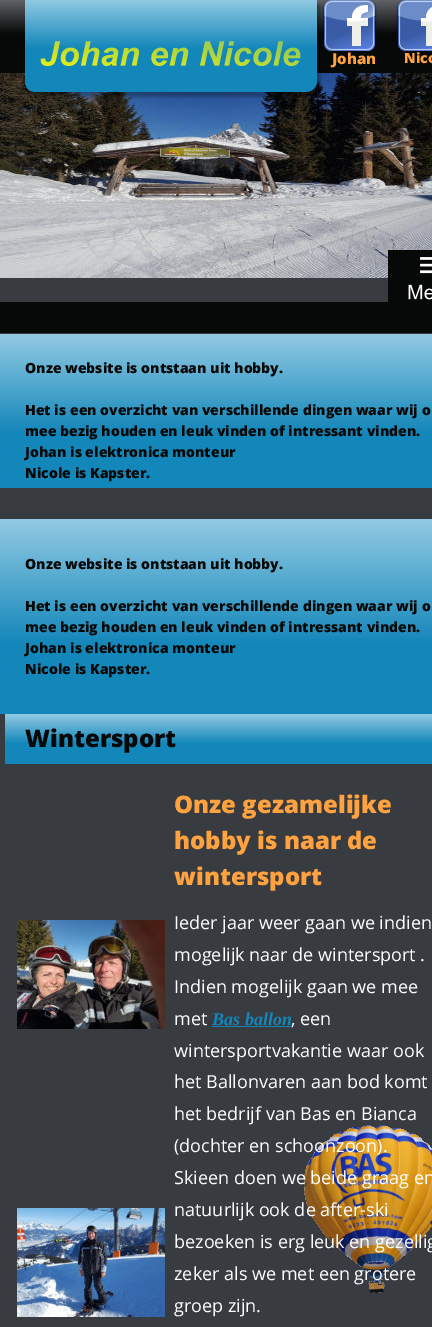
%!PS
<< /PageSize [432 1327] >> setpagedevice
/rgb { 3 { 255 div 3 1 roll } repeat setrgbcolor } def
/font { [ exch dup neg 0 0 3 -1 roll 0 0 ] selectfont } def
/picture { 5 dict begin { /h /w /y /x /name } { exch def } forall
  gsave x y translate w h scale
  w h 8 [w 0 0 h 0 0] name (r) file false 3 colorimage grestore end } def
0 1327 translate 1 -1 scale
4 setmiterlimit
56 59 64 rgb
0 0 432 1327 rectfill
gsave 0 0 moveto 432 0 lineto 432 73 lineto 0 73 lineto closepath clip newpath
<< /ShadingType 2 /ColorSpace /DeviceRGB /Coords [240 -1 240 73] /Extend [true true] /Function << /FunctionType 3 /Domain [0 1] /Functions [<< /FunctionType 2 /Domain [0 1] /C0 [0.384 0.396 0.42] /C1 [0.027 0.031 0.031] /N 1 >> << /FunctionType 2 /Domain [0 1] /C0 [0.027 0.031 0.031] /C1 [0.027 0.031 0.031] /N 1 >>] /Bounds [0.47] /Encode [0 1 0 1] >> >> shfill grestore
(img/4.rgb) 0 73 432 205 picture
(img/1.rgb) 25 0 298 99 picture
(img/2.rgb) 322 0 55 51 picture
(img/3.rgb) 396 0 36 51 picture
7 8 8 rgb
0 302 432 31 rectfill
gsave 0 334 moveto 432 334 lineto 432 488 lineto 0 488 lineto closepath clip newpath
<< /ShadingType 2 /ColorSpace /DeviceRGB /Coords [240 334 240 488] /Extend [true true] /Function << /FunctionType 3 /Domain [0 1] /Functions [<< /FunctionType 2 /Domain [0 1] /C0 [0.573 0.792 0.89] /C1 [0.078 0.529 0.729] /N 1 >> << /FunctionType 2 /Domain [0 1] /C0 [0.078 0.529 0.729] /C1 [0.078 0.529 0.729] /N 1 >>] /Bounds [0.64] /Encode [0 1 0 1] >> >> shfill grestore
gsave 0 519 moveto 432 519 lineto 432 714 lineto 0 714 lineto closepath clip newpath
<< /ShadingType 2 /ColorSpace /DeviceRGB /Coords [240 519 240 714] /Extend [true true] /Function << /FunctionType 3 /Domain [0 1] /Functions [<< /FunctionType 2 /Domain [0 1] /C0 [0.573 0.792 0.89] /C1 [0.078 0.529 0.729] /N 1 >> << /FunctionType 2 /Domain [0 1] /C0 [0.078 0.529 0.729] /C1 [0.078 0.529 0.729] /N 1 >>] /Bounds [0.64] /Encode [0 1 0 1] >> >> shfill grestore
(img/5.rgb) 5 714 427 50 picture
(img/6.rgb) 17 920 148 109 picture
20 135 186 rgb
212 1026 79 1 rectfill
(img/7.rgb) 17 1208 148 109 picture
(img/8.rgb) 304 1125 128 168 picture
(img/9.rgb) 388 250 44 52 picture
/OpenSans-ExtraBold 15 font
255 162 63 rgb
332 64 moveto (Johan) show
/OpenSans-ExtraBold 14 font
404 63 moveto (Nico) show
7 8 8 rgb
[
  [(Onze website is ontstaan uit hobby.) 25 373]
  [(Het is een overzicht van verschillende dingen waar wij o) 25 415]
  [(mee bezig houden en leuk vinden of intressant vinden.) 25 436]
  [(Johan is elektronica monteur) 25 457]
  [(Nicole is Kapster.) 25 478]
  [(Onze website is ontstaan uit hobby.) 25 569]
  [(Het is een overzicht van verschillende dingen waar wij o) 25 611]
  [(mee bezig houden en leuk vinden of intressant vinden.) 25 632]
  [(Johan is elektronica monteur) 25 653]
  [(Nicole is Kapster.) 25 674]
] { aload pop moveto show } forall
/OpenSans-ExtraBold 24 font
25 747 moveto (Wintersport) show
255 162 63 rgb
[
  [(Onze gezamelijke) 174 813]
  [(hobby is naar de) 174 849]
  [(wintersport) 174 885]
] { aload pop moveto show } forall
/OpenSans-Regular 18 font
255 255 255 rgb
[
  [(Ieder jaar weer gaan we indien) 174 929]
  [(mogelijk naar de wintersport .) 174 961]
  [(Indien mogelijk gaan we mee) 174 993]
  [(met) 174 1025]
] { aload pop moveto show } forall
/LiberationSerif-BoldItalic 18 font
20 135 186 rgb
212 1025 moveto (Bas ballon) show
/OpenSans-Regular 18 font
255 255 255 rgb
[
  [(, een) 291 1025]
  [(wintersportvakantie waar ook) 174 1057]
  [(het Ballonvaren aan bod komt) 174 1088]
  [(het bedrijf van Bas en Bianca) 174 1120]
  [(\(dochter en schoonzoon\).) 174 1152]
  [(Skieen doen we beide graag en) 174 1184]
  [(natuurlijk ook de after-ski) 174 1216]
  [(bezoeken is erg leuk en gezellig) 174 1248]
  [(zeker als we met een grotere) 174 1280]
  [(groep zijn.) 174 1312]
] { aload pop moveto show } forall
showpage
